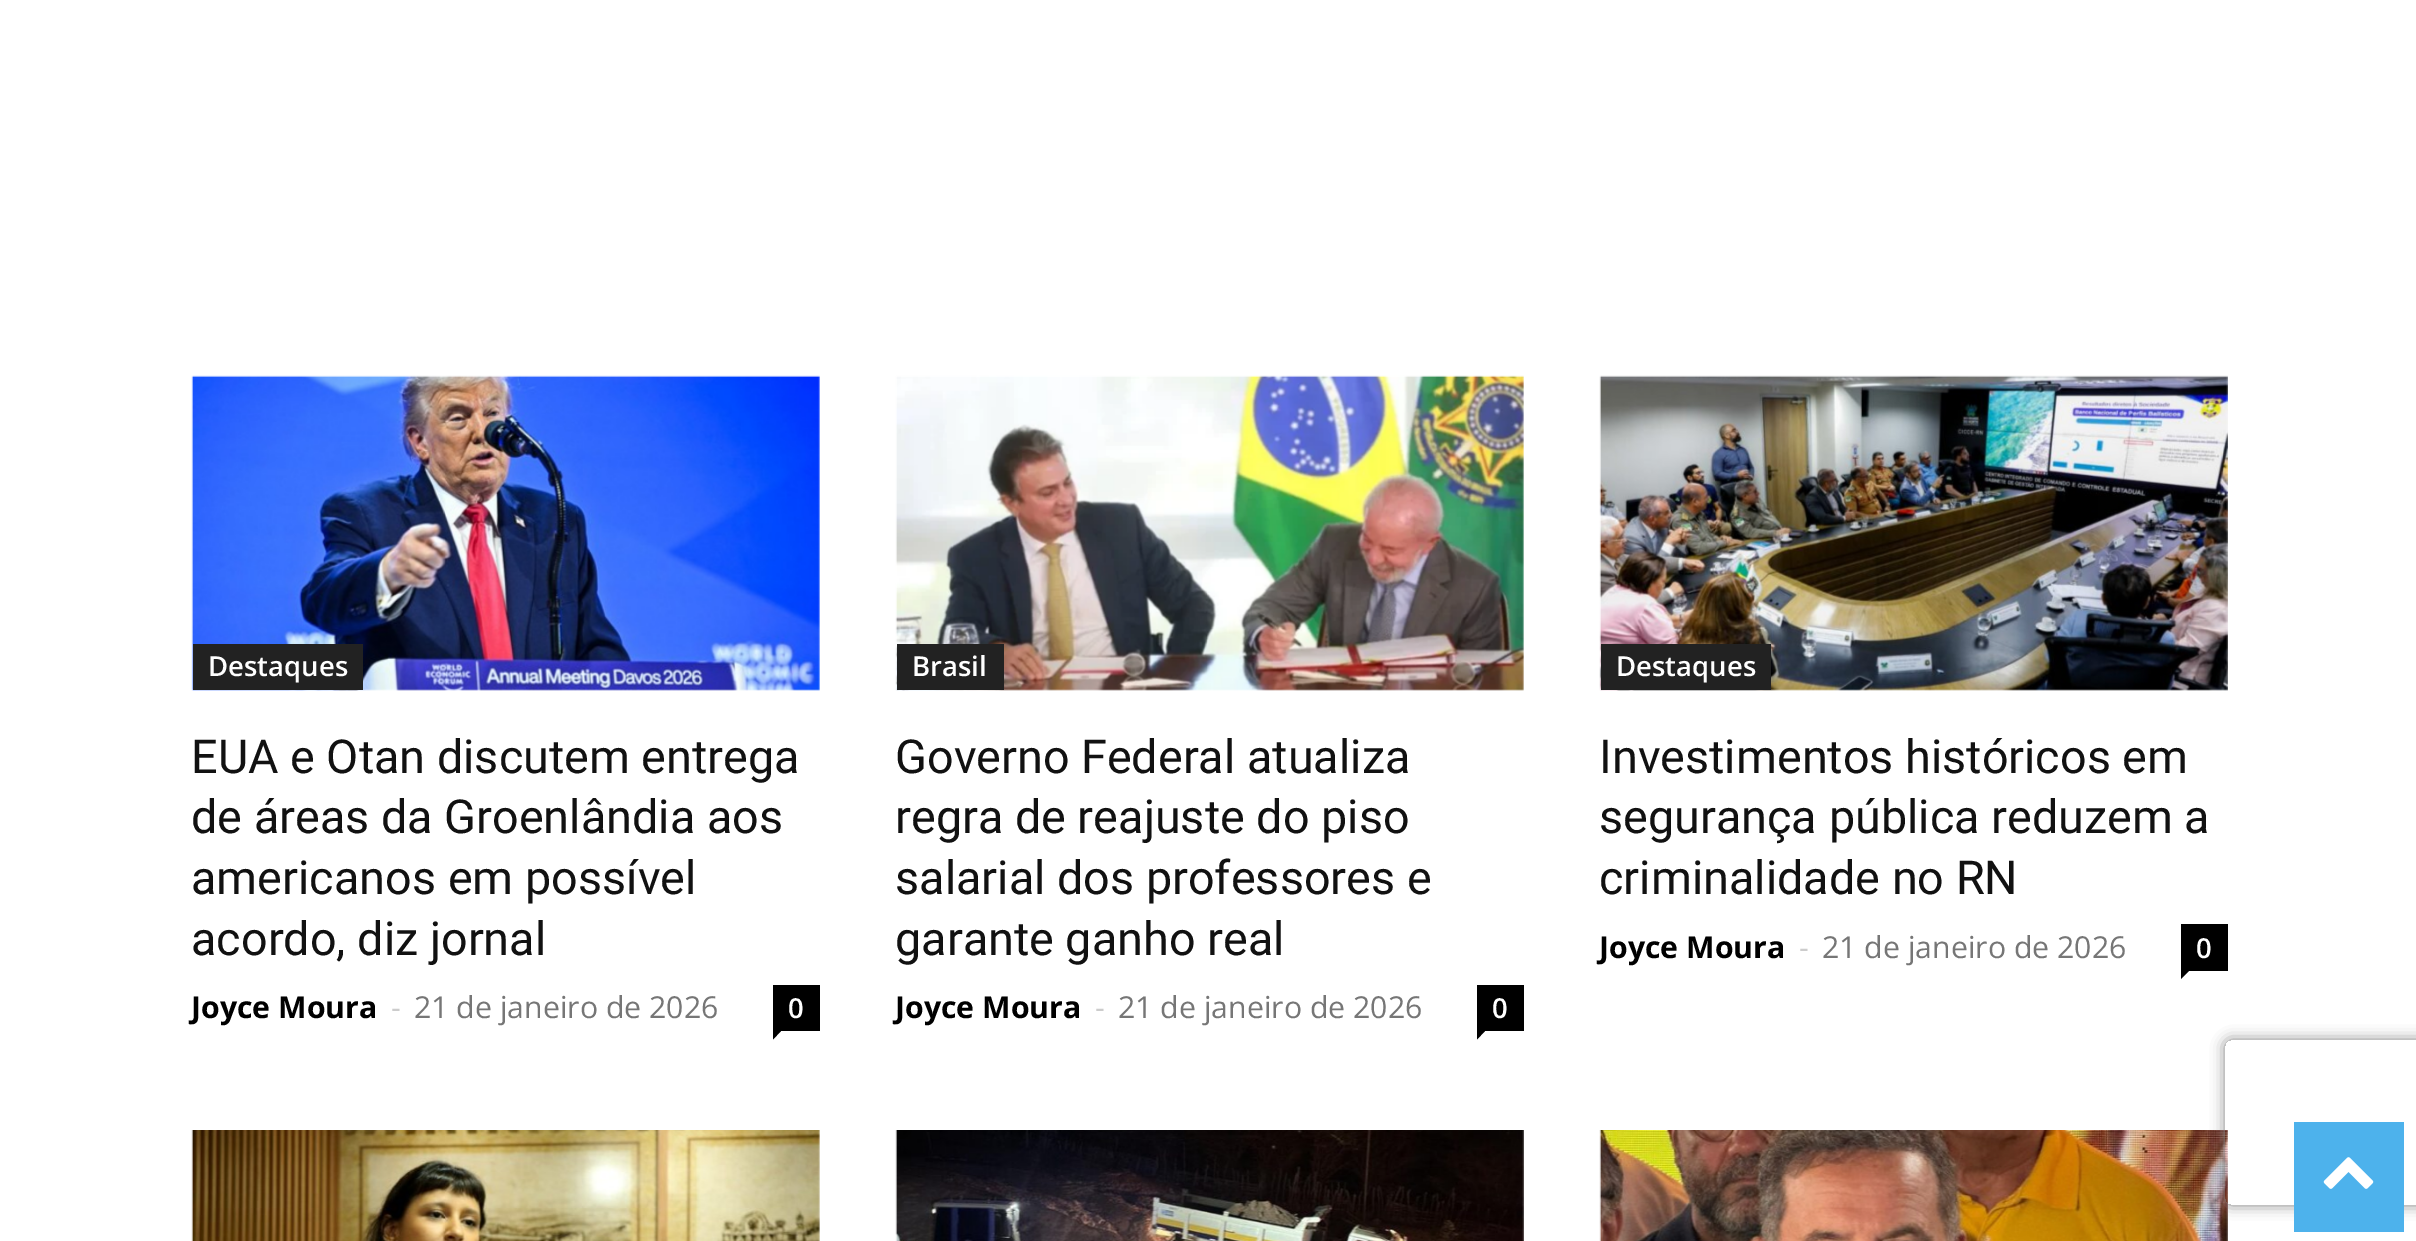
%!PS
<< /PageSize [2416 1241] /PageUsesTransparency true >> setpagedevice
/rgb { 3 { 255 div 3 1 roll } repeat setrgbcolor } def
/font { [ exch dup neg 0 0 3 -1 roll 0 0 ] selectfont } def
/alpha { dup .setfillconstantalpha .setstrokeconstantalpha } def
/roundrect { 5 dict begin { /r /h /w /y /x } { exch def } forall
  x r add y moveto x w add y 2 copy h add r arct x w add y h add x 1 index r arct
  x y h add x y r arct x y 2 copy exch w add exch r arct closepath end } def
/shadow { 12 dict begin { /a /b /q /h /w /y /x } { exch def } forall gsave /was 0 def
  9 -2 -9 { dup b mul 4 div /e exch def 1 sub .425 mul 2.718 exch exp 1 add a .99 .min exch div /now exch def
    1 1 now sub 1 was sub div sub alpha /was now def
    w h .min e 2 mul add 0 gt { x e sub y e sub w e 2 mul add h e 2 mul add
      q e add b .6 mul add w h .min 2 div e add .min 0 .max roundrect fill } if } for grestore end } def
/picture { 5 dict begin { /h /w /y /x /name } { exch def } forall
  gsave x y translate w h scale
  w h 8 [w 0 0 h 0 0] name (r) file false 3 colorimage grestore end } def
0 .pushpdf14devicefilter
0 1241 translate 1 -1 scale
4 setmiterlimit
255 255 255 rgb
0 0 2416 1241 rectfill
(img/1.rgb) 191 375 629 316 picture
34 34 34 rgb
193 644 170 46 rectfill
0 0 0 rgb
773 985 47 46 rectfill
773 1031 moveto 781 1031 lineto 773 1039.5 lineto closepath fill
(img/2.rgb) 895 375 629 316 picture
34 34 34 rgb
897 644 107 46 rectfill
0 0 0 rgb
1477 985 47 46 rectfill
1477 1031 moveto 1485 1031 lineto 1477 1039.5 lineto closepath fill
(img/3.rgb) 1599 375 629 316 picture
34 34 34 rgb
1601 644 170 46 rectfill
0 0 0 rgb
2181 924 47 47 rectfill
2181 971 moveto 2189 971 lineto 2181 979 lineto closepath fill
(img/4.rgb) 191 1130 629 111 picture
(img/5.rgb) 895 1130 629 111 picture
(img/6.rgb) 1599 1130 629 111 picture
gsave
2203 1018 moveto 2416 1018 lineto 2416 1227 lineto 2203 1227 lineto closepath 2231 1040 moveto 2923 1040 lineto 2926.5 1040 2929 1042.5 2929 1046 curveto 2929 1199 lineto 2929 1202.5 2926.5 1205 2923 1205 curveto 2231 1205 lineto 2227.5 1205 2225 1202.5 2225 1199 curveto 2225 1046 lineto 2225 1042.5 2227.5 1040 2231 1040 curveto closepath eoclip newpath
128 128 128 rgb
2225 1040 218 165 6 7 1 shadow
grestore
77 178 236 rgb
2294 1122 110 110 rectfill
(img/7.rgb) 2323 1157 51 32 picture
/OpenSans-SemiBold 27.5 font
255 255 255 rgb
208 676 moveto (Destaques) show
/Roboto-Regular 46.75 font
17 17 17 rgb
[
  [(EUA e Otan discutem entrega) 191 773]
  [(de áreas da Groenlândia aos) 191 833]
  [(americanos em possível) 191 894]
  [(acordo, diz jornal) 191 955]
] { aload pop moveto show } forall
/OpenSans-Bold 30.25 font
0 0 0 rgb
191 1018 moveto (Joyce Moura) show
/OpenSans-Regular 30.25 font
204 204 204 rgb
391 1018 moveto (-) show
118 118 118 rgb
414 1018 moveto (21 de janeiro de 2026) show
/OpenSans-SemiBold 27.5 font
255 255 255 rgb
788 1018 moveto (0) show
912 676 moveto (Brasil) show
/Roboto-Regular 46.75 font
17 17 17 rgb
[
  [(Governo Federal atualiza) 895 773]
  [(regra de reajuste do piso) 895 833]
  [(salarial dos professores e) 895 894]
  [(garante ganho real) 895 955]
] { aload pop moveto show } forall
/OpenSans-Bold 30.25 font
0 0 0 rgb
895 1018 moveto (Joyce Moura) show
/OpenSans-Regular 30.25 font
204 204 204 rgb
1095 1018 moveto (-) show
118 118 118 rgb
1118 1018 moveto (21 de janeiro de 2026) show
/OpenSans-SemiBold 27.5 font
255 255 255 rgb
1492 1018 moveto (0) show
1616 676 moveto (Destaques) show
/Roboto-Regular 46.75 font
17 17 17 rgb
[
  [(Investimentos históricos em) 1599 773]
  [(segurança pública reduzem a) 1599 833]
  [(criminalidade no RN) 1599 894]
] { aload pop moveto show } forall
/OpenSans-Bold 30.25 font
0 0 0 rgb
1599 958 moveto (Joyce Moura) show
/OpenSans-Regular 30.25 font
204 204 204 rgb
1799 958 moveto (-) show
118 118 118 rgb
1822 958 moveto (21 de janeiro de 2026) show
/OpenSans-SemiBold 27.5 font
255 255 255 rgb
2196 958 moveto (0) show
.poppdf14devicefilter showpage
